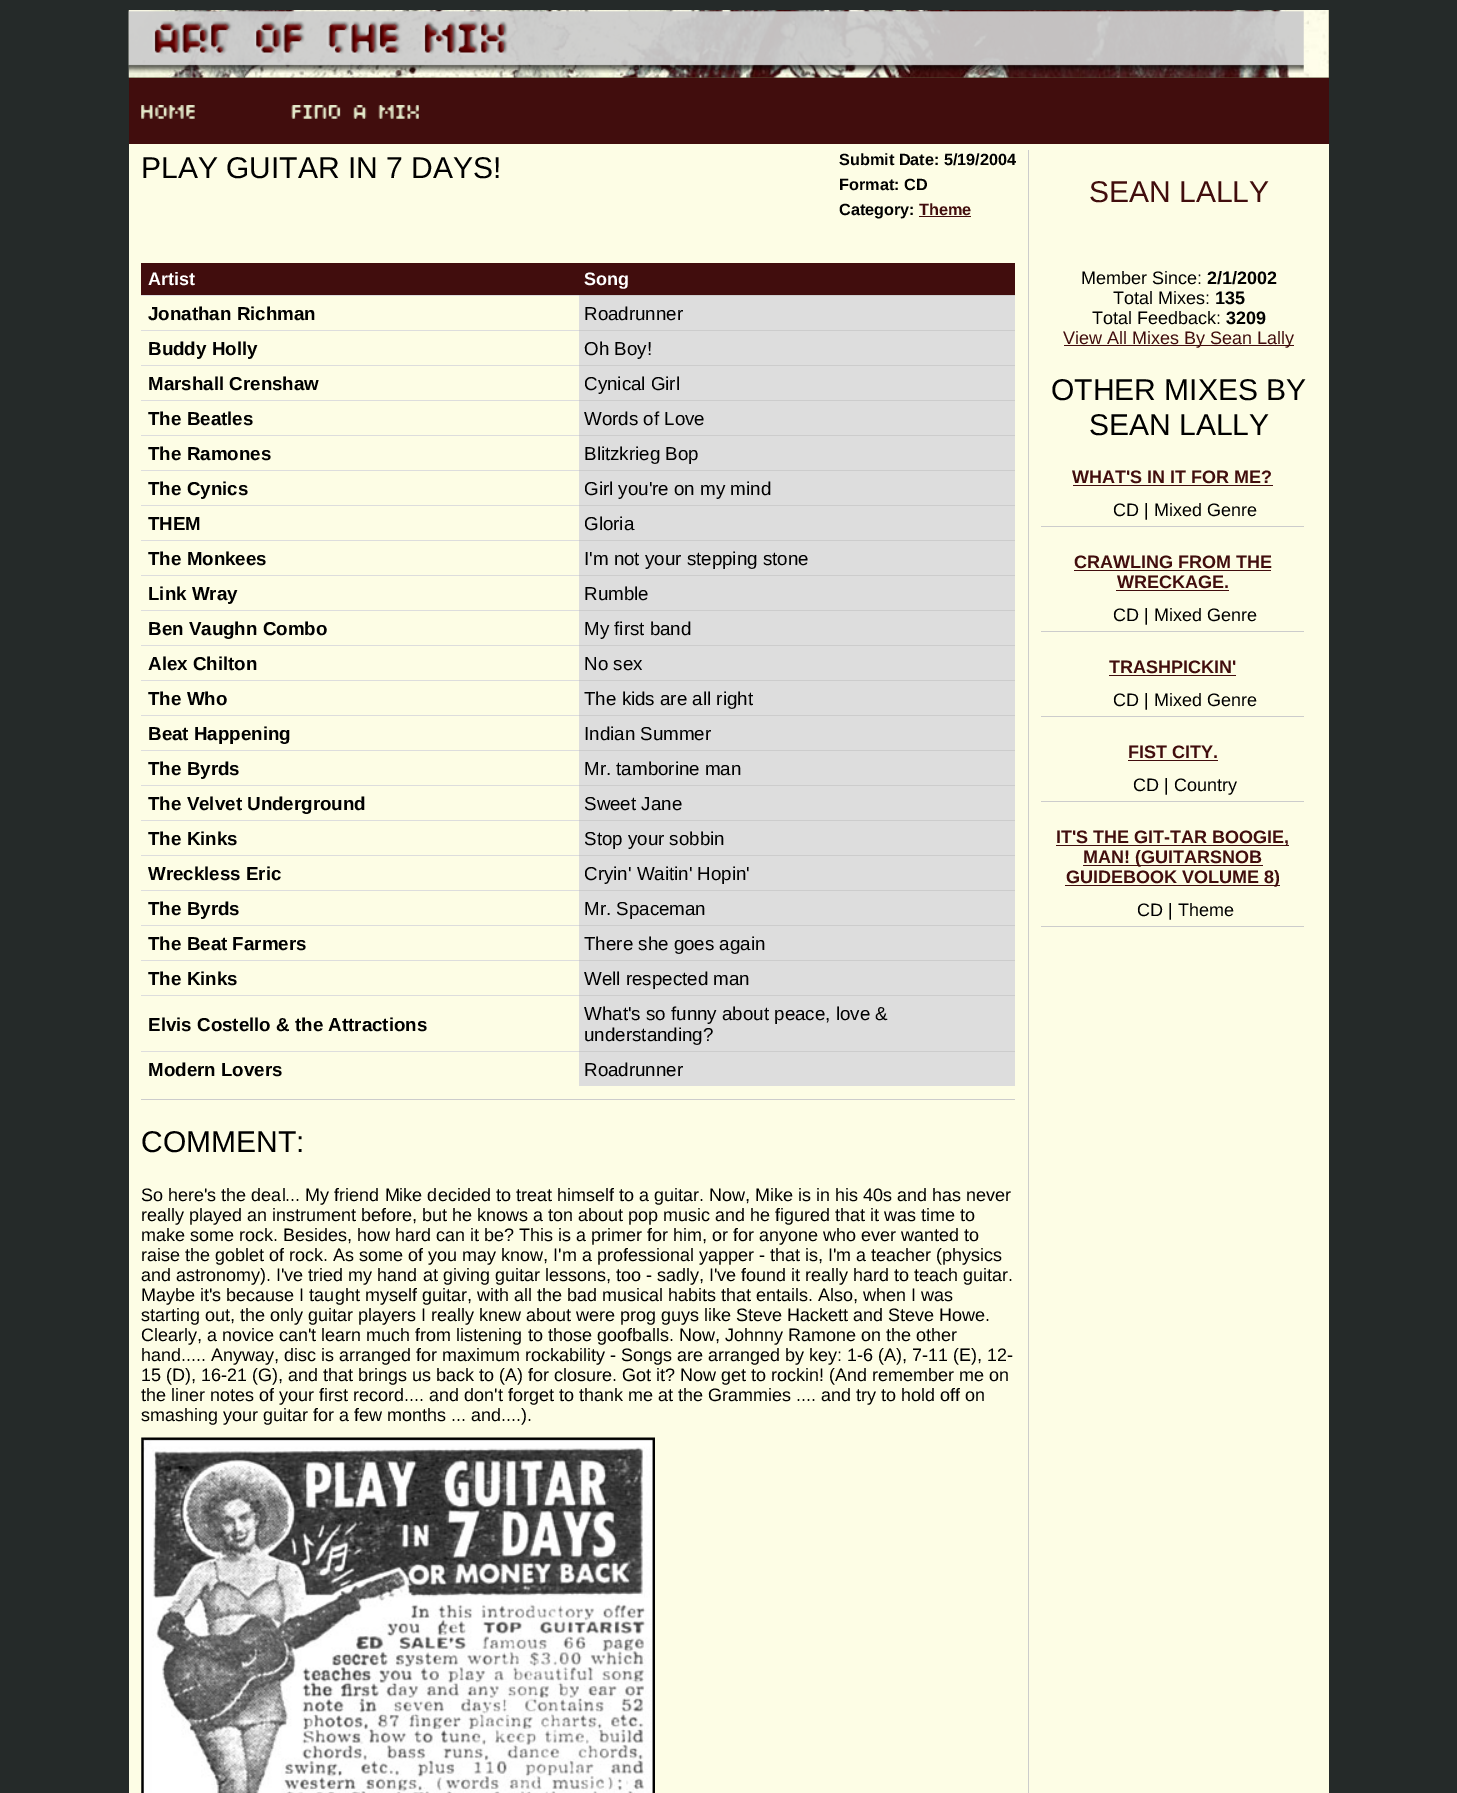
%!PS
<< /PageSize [1457 1793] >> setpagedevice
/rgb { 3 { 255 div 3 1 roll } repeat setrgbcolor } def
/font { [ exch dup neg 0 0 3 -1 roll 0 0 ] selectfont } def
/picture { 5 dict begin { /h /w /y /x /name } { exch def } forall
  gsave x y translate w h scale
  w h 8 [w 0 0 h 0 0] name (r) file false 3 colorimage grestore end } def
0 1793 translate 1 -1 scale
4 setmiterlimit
37 42 41 rgb
0 0 1457 1793 rectfill
253 253 229 rgb
129 144 1200 1649 rectfill
82 75 46 rgb
129 10 1200 68 rectfill
(img/1.rgb) 128 10 1201 68 picture
(img/2.rgb) 128 10 1176 63 picture
65 13 13 rgb
129 78 1200 66 rectfill
(img/3.rgb) 141 105 54 14 picture
(img/4.rgb) 291 105 128 14 picture
[
  [1028 150 1 1643 204 204 204]
  [919 216 52 1 65 13 13]
  [141 263 874 32 65 13 13]
  [141 295 438 1 221 221 221]
  [579 296 436 34 221 221 221]
  [579 295 436 1 204 204 204]
  [141 330 438 1 221 221 221]
  [579 331 436 34 221 221 221]
  [579 330 436 1 204 204 204]
  [141 365 438 1 221 221 221]
  [579 366 436 34 221 221 221]
  [579 365 436 1 204 204 204]
  [141 400 438 1 221 221 221]
  [579 401 436 34 221 221 221]
  [579 400 436 1 204 204 204]
  [141 435 438 1 221 221 221]
  [579 436 436 34 221 221 221]
  [579 435 436 1 204 204 204]
  [141 470 438 1 221 221 221]
  [579 471 436 34 221 221 221]
  [579 470 436 1 204 204 204]
  [141 505 438 1 221 221 221]
  [579 506 436 34 221 221 221]
  [579 505 436 1 204 204 204]
  [141 540 438 1 221 221 221]
  [579 541 436 34 221 221 221]
  [579 540 436 1 204 204 204]
  [141 575 438 1 221 221 221]
  [579 576 436 34 221 221 221]
  [579 575 436 1 204 204 204]
  [141 610 438 1 221 221 221]
  [579 611 436 34 221 221 221]
  [579 610 436 1 204 204 204]
  [141 645 438 1 221 221 221]
  [579 646 436 34 221 221 221]
  [579 645 436 1 204 204 204]
  [141 680 438 1 221 221 221]
  [579 681 436 34 221 221 221]
  [579 680 436 1 204 204 204]
  [141 715 438 1 221 221 221]
  [579 716 436 34 221 221 221]
  [579 715 436 1 204 204 204]
  [141 750 438 1 221 221 221]
  [579 751 436 34 221 221 221]
  [579 750 436 1 204 204 204]
  [141 785 438 1 221 221 221]
  [579 786 436 34 221 221 221]
  [579 785 436 1 204 204 204]
  [141 820 438 1 221 221 221]
  [579 821 436 34 221 221 221]
  [579 820 436 1 204 204 204]
  [141 855 438 1 221 221 221]
  [579 856 436 34 221 221 221]
  [579 855 436 1 204 204 204]
  [141 890 438 1 221 221 221]
  [579 891 436 34 221 221 221]
  [579 890 436 1 204 204 204]
  [141 925 438 1 221 221 221]
  [579 926 436 34 221 221 221]
  [579 925 436 1 204 204 204]
  [141 960 438 1 221 221 221]
  [579 961 436 34 221 221 221]
  [579 960 436 1 204 204 204]
  [141 995 438 1 221 221 221]
  [579 996 436 55 221 221 221]
  [579 995 436 1 204 204 204]
  [141 1051 438 1 221 221 221]
  [579 1052 436 34 221 221 221]
  [579 1051 436 1 204 204 204]
  [141 1099 874 1 204 204 204]
] { aload pop rgb rectfill } forall
(img/5.rgb) 141 1437 514 356 picture
[
  [1064 345 230 1 65 13 13]
  [1041 526 263 1 204 204 204]
  [1073 485 200 1 65 13 13]
  [1041 631 263 1 204 204 204]
  [1074 570 197 1 65 13 13]
  [1116 590 113 1 65 13 13]
  [1041 716 263 1 204 204 204]
  [1109 675 127 1 65 13 13]
  [1041 801 263 1 204 204 204]
  [1128 760 90 1 65 13 13]
  [1041 926 263 1 204 204 204]
  [1056 845 233 1 65 13 13]
  [1083 865 180 1 65 13 13]
  [1065 885 215 1 65 13 13]
] { aload pop rgb rectfill } forall
/LiberationSans-Regular 30 font
0 0 0 rgb
141 178 moveto (PLAY GUITAR IN 7 DAYS!) show
/LiberationSans-Bold 16.25 font
[
  [(Submit Date: 5/19/2004) 839 165]
  [(Format: CD) 839 190]
  [(Category:) 839 215]
] { aload pop moveto show } forall
65 13 13 rgb
919 215 moveto (Theme) show
/LiberationSans-Bold 18 font
255 255 255 rgb
148 285 moveto (Artist) show
584 285 moveto (Song) show
/LiberationSans-Bold 18.75 font
0 0 0 rgb
148 320 moveto (Jonathan Richman) show
/LiberationSans-Regular 18.75 font
584 320 moveto (Roadrunner) show
/LiberationSans-Bold 18.75 font
148 355 moveto (Buddy Holly) show
/LiberationSans-Regular 18.75 font
584 355 moveto (Oh Boy!) show
/LiberationSans-Bold 18.75 font
148 390 moveto (Marshall Crenshaw) show
/LiberationSans-Regular 18.75 font
584 390 moveto (Cynical Girl) show
/LiberationSans-Bold 18.75 font
148 425 moveto (The Beatles) show
/LiberationSans-Regular 18.75 font
584 425 moveto (Words of Love) show
/LiberationSans-Bold 18.75 font
148 460 moveto (The Ramones) show
/LiberationSans-Regular 18.75 font
584 460 moveto (Blitzkrieg Bop) show
/LiberationSans-Bold 18.75 font
148 495 moveto (The Cynics) show
/LiberationSans-Regular 18.75 font
584 495 moveto (Girl you're on my mind) show
/LiberationSans-Bold 18.75 font
148 530 moveto (THEM) show
/LiberationSans-Regular 18.75 font
584 530 moveto (Gloria) show
/LiberationSans-Bold 18.75 font
148 565 moveto (The Monkees) show
/LiberationSans-Regular 18.75 font
584 565 moveto (I'm not your stepping stone) show
/LiberationSans-Bold 18.75 font
148 600 moveto (Link Wray) show
/LiberationSans-Regular 18.75 font
584 600 moveto (Rumble) show
/LiberationSans-Bold 18.75 font
148 635 moveto (Ben Vaughn Combo) show
/LiberationSans-Regular 18.75 font
584 635 moveto (My first band) show
/LiberationSans-Bold 18.75 font
148 670 moveto (Alex Chilton) show
/LiberationSans-Regular 18.75 font
584 670 moveto (No sex) show
/LiberationSans-Bold 18.75 font
148 705 moveto (The Who) show
/LiberationSans-Regular 18.75 font
584 705 moveto (The kids are all right) show
/LiberationSans-Bold 18.75 font
148 740 moveto (Beat Happening) show
/LiberationSans-Regular 18.75 font
584 740 moveto (Indian Summer) show
/LiberationSans-Bold 18.75 font
148 775 moveto (The Byrds) show
/LiberationSans-Regular 18.75 font
584 775 moveto (Mr. tamborine man) show
/LiberationSans-Bold 18.75 font
148 810 moveto (The Velvet Underground) show
/LiberationSans-Regular 18.75 font
584 810 moveto (Sweet Jane) show
/LiberationSans-Bold 18.75 font
148 845 moveto (The Kinks) show
/LiberationSans-Regular 18.75 font
584 845 moveto (Stop your sobbin) show
/LiberationSans-Bold 18.75 font
148 880 moveto (Wreckless Eric) show
/LiberationSans-Regular 18.75 font
584 880 moveto (Cryin' Waitin' Hopin') show
/LiberationSans-Bold 18.75 font
148 915 moveto (The Byrds) show
/LiberationSans-Regular 18.75 font
584 915 moveto (Mr. Spaceman) show
/LiberationSans-Bold 18.75 font
148 950 moveto (The Beat Farmers) show
/LiberationSans-Regular 18.75 font
584 950 moveto (There she goes again) show
/LiberationSans-Bold 18.75 font
148 985 moveto (The Kinks) show
/LiberationSans-Regular 18.75 font
584 985 moveto (Well respected man) show
/LiberationSans-Bold 18.75 font
148 1031 moveto (Elvis Costello & the Attractions) show
/LiberationSans-Regular 18.75 font
584 1020 moveto (What's so funny about peace, love &) show
584 1041 moveto (understanding?) show
/LiberationSans-Bold 18.75 font
148 1076 moveto (Modern Lovers) show
/LiberationSans-Regular 18.75 font
584 1076 moveto (Roadrunner) show
/LiberationSans-Regular 30 font
141 1152 moveto (COMMENT:) show
/LiberationSans-Regular 18 font
[
  [(So here's the deal... My friend Mike decided to treat himself to a guitar. Now, Mike is in his 40s and has never) 141 1201]
  [(really played an instrument before, but he knows a ton about pop music and he figured that it was time to) 141 1221]
  [(make some rock. Besides, how hard can it be? This is a primer for him, or for anyone who ever wanted to) 141 1241]
  [(raise the goblet of rock. As some of you may know, I'm a professional yapper - that is, I'm a teacher \(physics) 141 1261]
  [(and astronomy\). I've tried my hand at giving guitar lessons, too - sadly, I've found it really hard to teach guitar.) 141 1281]
  [(Maybe it's because I taught myself guitar, with all the bad musical habits that entails. Also, when I was) 141 1301]
  [(starting out, the only guitar players I really knew about were prog guys like Steve Hackett and Steve Howe.) 141 1321]
  [(Clearly, a novice can't learn much from listening to those goofballs.) 141 1341]
  [(Now, Johnny Ramone on the other) 679 1341]
  [(hand..... Anyway, disc is arranged for maximum rockability - Songs are arranged by key: 1-6 \(A\), 7-11 \(E\), 12-) 141 1361]
  [(15 \(D\), 16-21 \(G\), and that brings us back to \(A\) for closure.) 141 1381]
  [(Got it? Now get to rockin! \(And remember me on) 622 1381]
  [(the liner notes of your first record.... and don't forget to thank me at the Grammies .... and try to hold off on) 141 1401]
  [(smashing your guitar for a few months ... and....\).) 141 1421]
] { aload pop moveto show } forall
/LiberationSans-Regular 30 font
65 13 13 rgb
1089 202 moveto (SEAN LALLY) show
/LiberationSans-Regular 18 font
0 0 0 rgb
1081 284 moveto (Member Since:) show
/LiberationSans-Bold 18 font
1207 284 moveto (2/1/2002) show
/LiberationSans-Regular 18 font
1113 304 moveto (Total Mixes:) show
/LiberationSans-Bold 18 font
1215 304 moveto (135) show
/LiberationSans-Regular 18 font
1092 324 moveto (Total Feedback:) show
/LiberationSans-Bold 18 font
1226 324 moveto (3209) show
/LiberationSans-Regular 18 font
65 13 13 rgb
1063 344 moveto (View All Mixes By Sean Lally) show
/LiberationSans-Regular 30 font
0 0 0 rgb
1051 400 moveto (OTHER MIXES BY) show
1089 435 moveto (SEAN LALLY) show
/LiberationSans-Bold 18 font
65 13 13 rgb
1072 483 moveto (WHAT'S IN IT FOR ME?) show
/LiberationSans-Regular 18 font
0 0 0 rgb
1113 516 moveto (CD | Mixed Genre) show
/LiberationSans-Bold 18 font
65 13 13 rgb
1074 568 moveto (CRAWLING FROM THE) show
1117 588 moveto (WRECKAGE.) show
/LiberationSans-Regular 18 font
0 0 0 rgb
1113 621 moveto (CD | Mixed Genre) show
/LiberationSans-Bold 18 font
65 13 13 rgb
1109 673 moveto (TRASHPICKIN') show
/LiberationSans-Regular 18 font
0 0 0 rgb
1113 706 moveto (CD | Mixed Genre) show
/LiberationSans-Bold 18 font
65 13 13 rgb
1128 758 moveto (FIST CITY.) show
/LiberationSans-Regular 18 font
0 0 0 rgb
1133 791 moveto (CD | Country) show
/LiberationSans-Bold 18 font
65 13 13 rgb
[
  [(IT'S THE GIT-TAR BOOGIE,) 1056 843]
  [(MAN! \(GUITARSNOB) 1083 863]
  [(GUIDEBOOK VOLUME 8\)) 1066 883]
] { aload pop moveto show } forall
/LiberationSans-Regular 18 font
0 0 0 rgb
1137 916 moveto (CD | Theme) show
showpage
